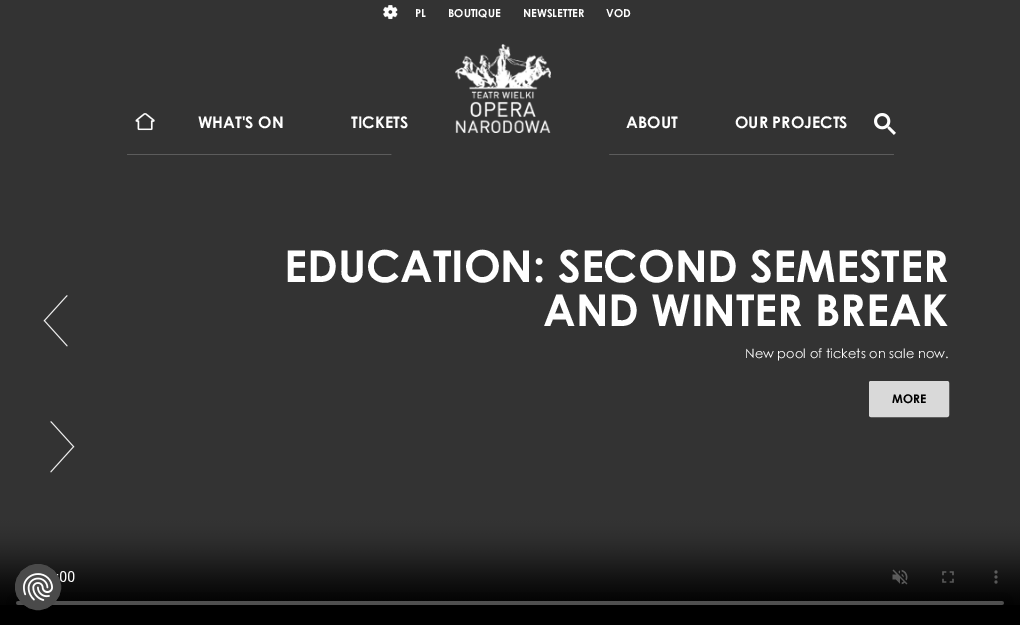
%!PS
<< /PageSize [1020 625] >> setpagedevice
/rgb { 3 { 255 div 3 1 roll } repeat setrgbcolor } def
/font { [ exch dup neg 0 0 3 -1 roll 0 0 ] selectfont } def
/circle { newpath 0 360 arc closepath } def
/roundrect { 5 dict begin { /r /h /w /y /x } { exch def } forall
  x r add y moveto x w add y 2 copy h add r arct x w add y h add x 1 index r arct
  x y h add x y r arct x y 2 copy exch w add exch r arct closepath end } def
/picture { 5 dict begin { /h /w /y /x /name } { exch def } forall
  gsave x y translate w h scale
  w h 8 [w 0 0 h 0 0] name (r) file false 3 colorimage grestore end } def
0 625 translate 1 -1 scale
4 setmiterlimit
0 0 0 rgb
0 0 1020 625 rectfill
(img/8.rgb) 0 0 1020 605 picture
(img/1.rgb) 127 154 767 1 picture
(img/2.rgb) 383 5 15 15 picture
(img/3.rgb) 455 44 96 89 picture
(img/4.rgb) 135 113 20 18 picture
(img/5.rgb) 874 113 22 22 picture
(img/6.rgb) 43 295 25 52 picture
(img/7.rgb) 50 421 25 52 picture
217 217 217 rgb
869.5 381.5 79 35 1.5 roundrect gsave fill grestore
stroke
74 74 74 rgb
38 587 22.5 circle gsave fill grestore
stroke
(img/9.rgb) 23 573 30 28 picture
/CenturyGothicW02-Bold 11 font
255 255 255 rgb
[
  [(PL) 415 17]
  [(BOUTIQUE) 448 17]
  [(NEWSLETTER) 523 17]
  [(VOD) 606 17]
] { aload pop moveto show } forall
/CenturyGothicW02-Bold 16 font
[
  [(WHAT'S ON) 198 128]
  [(TICKETS) 351 128]
  [(ABOUT) 626 128]
  [(OUR PROJECTS) 735 128]
] { aload pop moveto show } forall
/CenturyGothicW02-Bold 44 font
284 282 moveto (EDUCATION: SECOND SEMESTER) show
543 326 moveto (AND WINTER BREAK) show
/CenturyGothicW02-Regular 13 font
745 358 moveto (New pool of tickets on sale now.) show
/CenturyGothicW02-Bold 12 font
0 0 0 rgb
892 403 moveto (MORE) show
showpage
